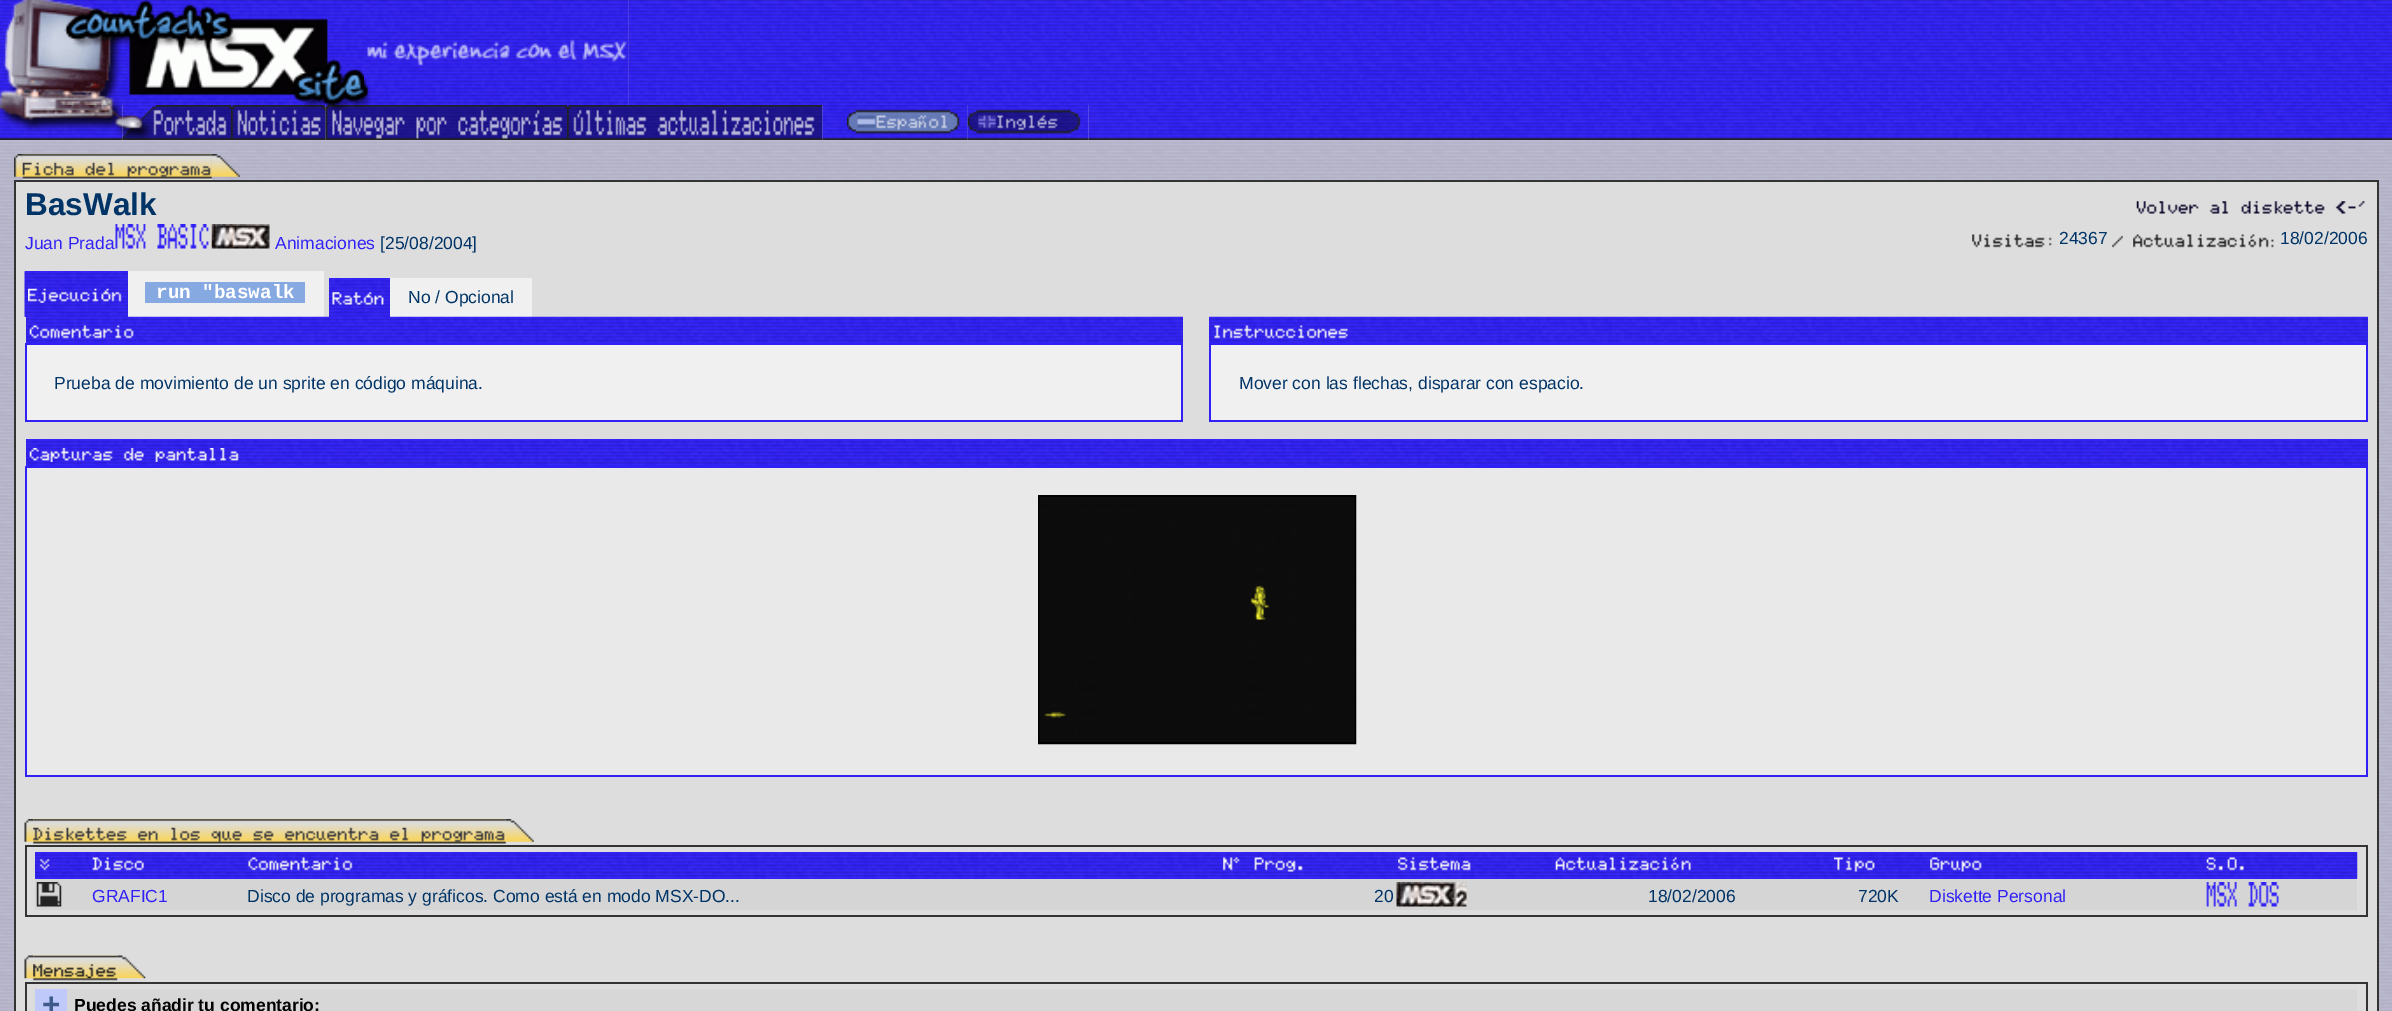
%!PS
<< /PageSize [2392 1011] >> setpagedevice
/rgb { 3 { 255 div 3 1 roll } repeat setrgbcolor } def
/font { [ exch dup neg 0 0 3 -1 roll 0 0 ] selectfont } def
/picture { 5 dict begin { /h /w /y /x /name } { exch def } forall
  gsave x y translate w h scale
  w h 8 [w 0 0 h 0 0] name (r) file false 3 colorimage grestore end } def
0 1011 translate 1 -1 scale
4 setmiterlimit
255 255 255 rgb
0 0 2392 1011 rectfill
(img/1.rgb) 0 0 364 105 picture
(img/3.rgb) 628 0 1764 105 picture
(img/2.rgb) 364 0 265 105 picture
(img/4.rgb) 0 105 123 35 picture
(img/5.rgb) 122 105 109 35 picture
(img/6.rgb) 231 105 95 35 picture
(img/7.rgb) 325 105 242 35 picture
(img/8.rgb) 567 105 256 35 picture
(img/9.rgb) 822 105 25 35 picture
(img/10.rgb) 847 105 121 35 picture
(img/12.rgb) 1088 105 1304 35 picture
(img/11.rgb) 967 105 122 35 picture
186 185 207 rgb
0 140 2392 2 rectfill
(img/13.rgb) 0 142 2392 869 picture
(img/15.rgb) 22 154 190 26 picture
(img/14.rgb) 14 154 9 23 picture
(img/16.rgb) 22 162 189 15 picture
(img/17.rgb) 211 154 29 23 picture
[
  [16 182 2361 829 221 221 221]
  [14 180 2364 2 51 51 51]
  [2377 180 2 831 51 51 51]
  [14 180 2 831 51 51 51]
] { aload pop rgb rectfill } forall
(img/18.rgb) 2136 201 229 13 picture
(img/19.rgb) 115 224 94 25 picture
(img/20.rgb) 211 224 59 25 picture
(img/21.rgb) 1972 234 80 14 picture
(img/22.rgb) 2112 235 11 13 picture
(img/23.rgb) 2133 234 141 14 picture
49 33 247 rgb
25 271 103 46 rectfill
(img/24.rgb) 24 271 104 46 picture
(img/25.rgb) 28 288 94 15 picture
240 240 240 rgb
128 271 196 46 rectfill
135 169 226 rgb
145 282 160 21 rectfill
(img/26.rgb) 329 278 61 39 picture
(img/27.rgb) 332 292 52 13 picture
240 240 240 rgb
390 278 142 39 rectfill
(img/28.rgb) 26 316 1157 27 picture
(img/29.rgb) 29 325 105 14 picture
(img/30.rgb) 1209 316 1159 27 picture
(img/31.rgb) 1214 325 134 14 picture
[
  [27 345 1154 75 240 240 240]
  [25 343 1158 2 49 33 247]
  [1181 343 2 79 49 33 247]
  [25 420 1158 2 49 33 247]
  [25 343 2 79 49 33 247]
  [1211 345 1155 75 240 240 240]
  [1209 343 1159 2 49 33 247]
  [2366 343 2 79 49 33 247]
  [1209 420 1159 2 49 33 247]
  [1209 343 2 79 49 33 247]
  [26 439 2342 27 49 33 247]
] { aload pop rgb rectfill } forall
(img/32.rgb) 26 439 2342 27 picture
(img/33.rgb) 29 448 210 14 picture
[
  [27 468 2339 307 233 233 233]
  [25 466 2343 2 49 33 247]
  [2366 466 2 311 49 33 247]
  [25 775 2343 2 49 33 247]
  [25 466 2 311 49 33 247]
] { aload pop rgb rectfill } forall
0 0 0 rgb
2 setlinewidth
1039 496 316 247 rectstroke
(img/34.rgb) 1039 497 316 245 picture
(img/36.rgb) 33 819 473 25 picture
(img/35.rgb) 24 819 10 23 picture
(img/37.rgb) 33 827 472 15 picture
(img/38.rgb) 505 819 29 23 picture
[
  [25 845 2343 2 51 51 51]
  [2366 845 2 72 51 51 51]
  [25 915 2343 2 51 51 51]
  [25 845 2 72 51 51 51]
  [35 852 2322 27 49 33 247]
] { aload pop rgb rectfill } forall
(img/39.rgb) 35 852 54 27 picture
(img/40.rgb) 39 858 11 13 picture
(img/41.rgb) 89 852 156 27 picture
(img/42.rgb) 92 857 52 14 picture
(img/43.rgb) 245 852 975 27 picture
(img/44.rgb) 248 857 105 14 picture
(img/45.rgb) 1220 852 175 27 picture
(img/46.rgb) 1223 857 80 15 picture
(img/47.rgb) 1395 852 157 27 picture
(img/48.rgb) 1398 857 73 14 picture
(img/49.rgb) 1552 852 279 27 picture
(img/50.rgb) 1555 857 136 14 picture
(img/51.rgb) 1830 852 97 26 picture
(img/52.rgb) 1834 857 41 15 picture
(img/53.rgb) 1927 852 276 27 picture
(img/54.rgb) 1930 857 52 15 picture
(img/55.rgb) 2203 852 155 27 picture
(img/56.rgb) 2206 857 38 14 picture
213 213 213 rgb
35 879 2322 31 rectfill
(img/57.rgb) 36 882 26 25 picture
(img/58.rgb) 1396 882 71 25 picture
(img/59.rgb) 2206 882 73 25 picture
(img/61.rgb) 33 955 85 26 picture
(img/60.rgb) 24 955 10 24 picture
(img/62.rgb) 33 964 83 15 picture
(img/63.rgb) 117 955 29 24 picture
[
  [25 982 2343 2 51 51 51]
  [2366 982 2 29 51 51 51]
  [25 982 2 29 51 51 51]
  [35 989 32 22 192 202 250]
  [67 989 2290 22 215 215 215]
] { aload pop rgb rectfill } forall
/LiberationSans-Bold 31.5 font
0 51 102 rgb
25 215 moveto (BasWalk) show
/LiberationSans-Regular 17.5 font
49 33 247 rgb
25 249 moveto (Juan Prada) show
275 249 moveto (Animaciones) show
0 51 102 rgb
[
  [([25/08/2004]) 380 249]
  [(24367) 2059 244]
  [(18/02/2006) 2280 244]
] { aload pop moveto show } forall
/LiberationMono-Bold 19.25 font
255 255 255 rgb
156 298 moveto (run "baswalk) show
/LiberationSans-Regular 17.5 font
0 51 102 rgb
[
  [(No / Opcional) 408 303]
  [(Prueba de movimiento de un sprite en código máquina.) 54 389]
  [(Mover con las flechas, disparar con espacio.) 1239 389]
] { aload pop moveto show } forall
49 33 247 rgb
92 902 moveto (GRAFIC1) show
0 51 102 rgb
[
  [(Disco de programas y gráficos. Como está en modo MSX-DO...) 247 902]
  [(20) 1374 902]
  [(18/02/2006) 1648 902]
  [(720K) 1858 902]
] { aload pop moveto show } forall
49 33 247 rgb
1929 902 moveto (Diskette Personal) show
/LiberationSans-Bold 31.5 font
63 91 139 rgb
42 1015 moveto (+) show
/LiberationSans-Bold 17.5 font
0 0 0 rgb
74 1011 moveto (Puedes añadir tu comentario:) show
showpage
